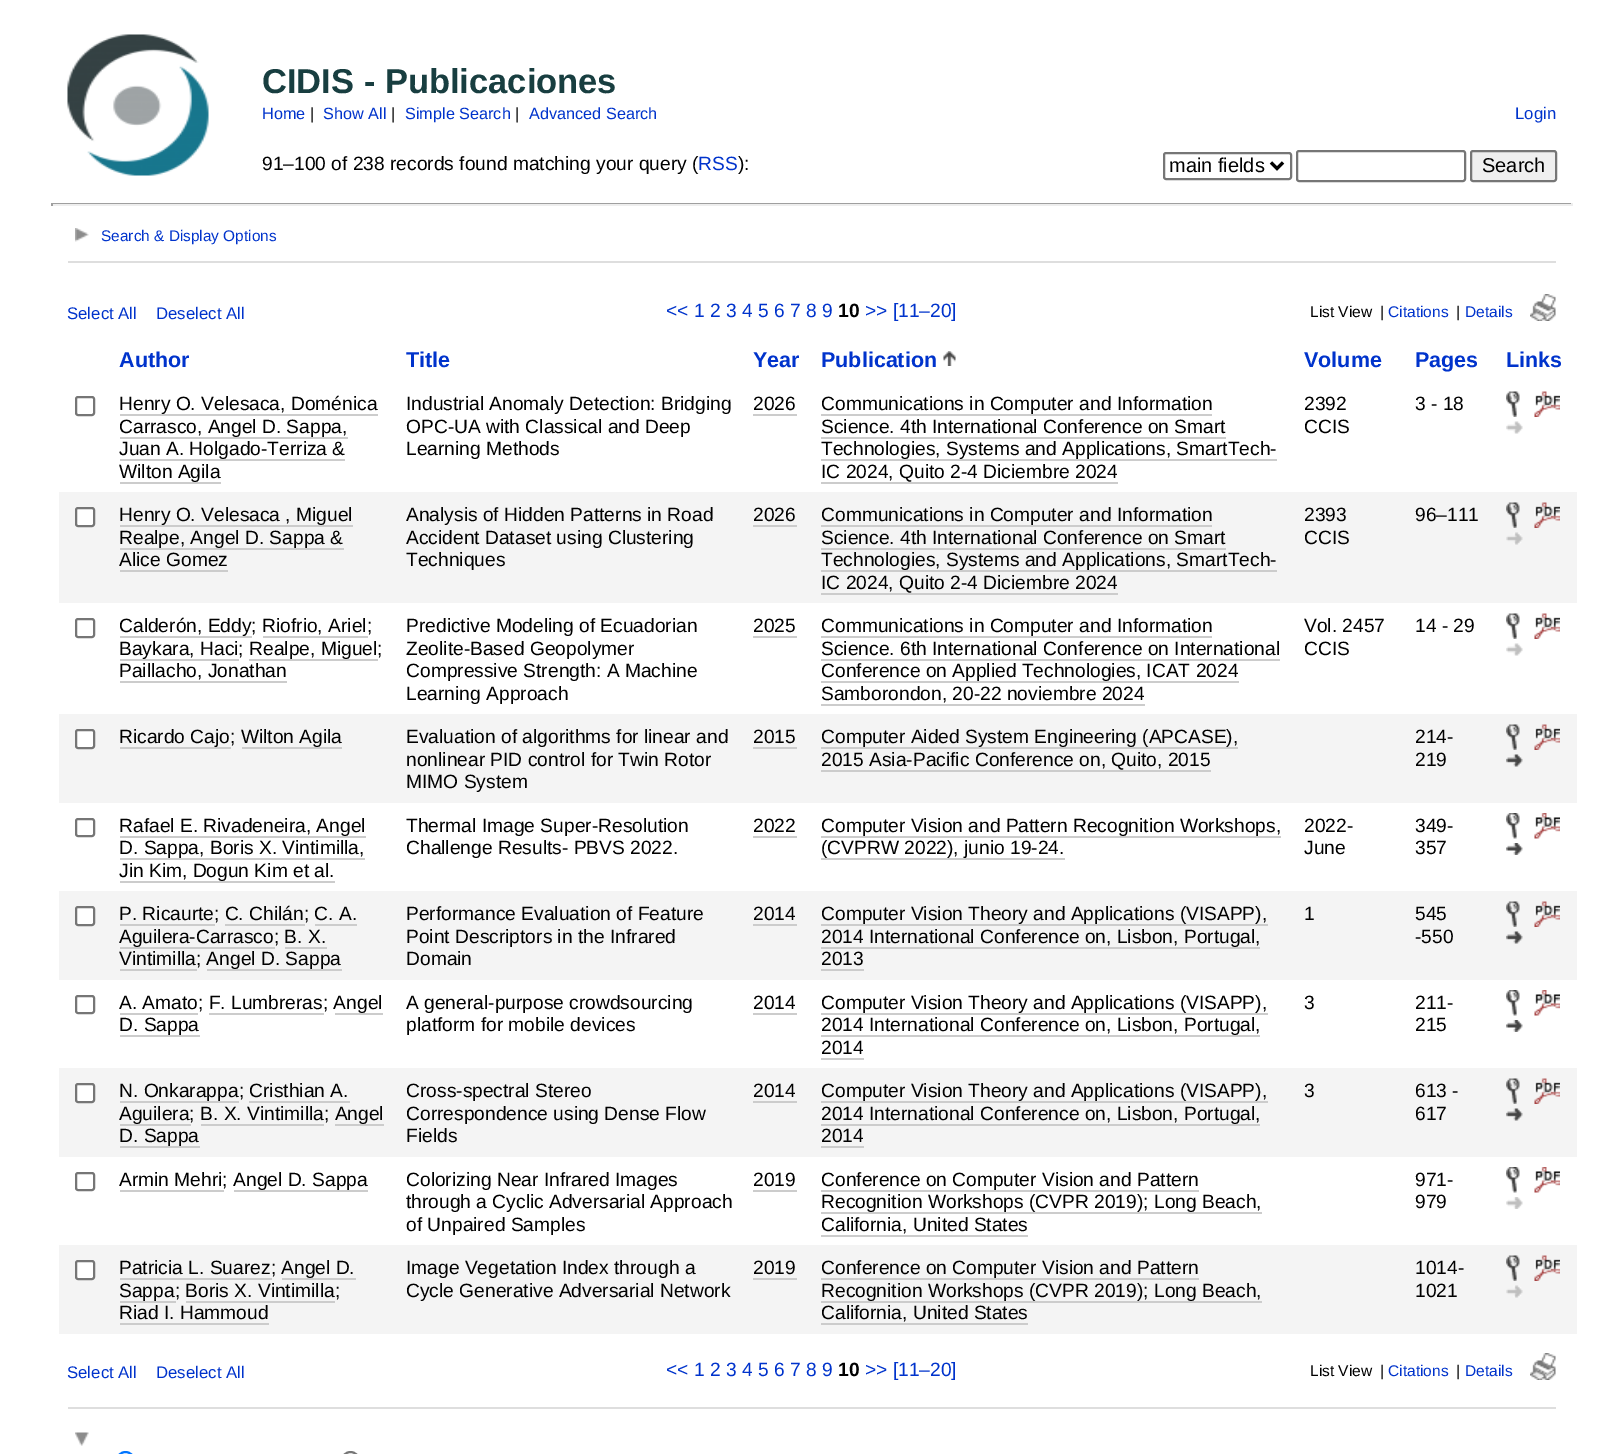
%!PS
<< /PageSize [1622 1454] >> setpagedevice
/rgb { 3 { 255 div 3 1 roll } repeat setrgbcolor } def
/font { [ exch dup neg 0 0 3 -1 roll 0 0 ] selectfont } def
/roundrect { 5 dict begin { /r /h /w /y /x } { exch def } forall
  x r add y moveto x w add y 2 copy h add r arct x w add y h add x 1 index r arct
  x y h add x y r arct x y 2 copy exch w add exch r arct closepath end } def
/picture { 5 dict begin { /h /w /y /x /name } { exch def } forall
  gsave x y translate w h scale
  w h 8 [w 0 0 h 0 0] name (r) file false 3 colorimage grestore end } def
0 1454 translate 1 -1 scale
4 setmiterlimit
255 255 255 rgb
0 0 1622 1454 rectfill
(img/1.rgb) 67 34 142 142 picture
118 118 118 rgb
2 setlinewidth
1164 153 127 26 2 roundrect stroke
0 0 0 rgb
3 setlinewidth
1271 162.5 moveto 1277 168.5 lineto 1283 162.5 lineto stroke
118 118 118 rgb
2 setlinewidth
1297 151 168 30 2 roundrect stroke
239 239 239 rgb
1471 151 85 30 2 roundrect gsave fill grestore
118 118 118 rgb
stroke
[
  [51 203 1521 1 159 159 159]
  [1571 203 2 3 238 238 238]
  [51 204 1521 2 238 238 238]
  [51 203 2 3 159 159 159]
] { aload pop rgb rectfill } forall
(img/2.rgb) 75 228 14 14 picture
222 222 222 rgb
68 261 1488 2 rectfill
(img/3.rgb) 1530 294 26 27 picture
(img/4.rgb) 943 351 13 15 picture
118 118 118 rgb
76 397 18 18 2 roundrect stroke
[
  [120 414 258 2 204 204 204]
  [120 437 228 2 204 204 204]
  [120 459 225 2 204 204 204]
  [120 482 101 2 204 204 204]
  [753 414 44 2 204 204 204]
  [821 414 391 2 204 204 204]
  [821 437 405 2 204 204 204]
  [821 459 456 2 204 204 204]
  [821 482 297 2 204 204 204]
] { aload pop rgb rectfill } forall
(img/5.rgb) 1506 391 14 26 picture
(img/6.rgb) 1534 391 26 26 picture
(img/7.rgb) 1506 421 17 13 picture
244 244 244 rgb
59 492 1518 111 rectfill
255 255 255 rgb
76 508 18 18 2 roundrect gsave fill grestore
118 118 118 rgb
stroke
[
  [120 525 233 2 204 204 204]
  [120 548 224 2 204 204 204]
  [120 570 108 2 204 204 204]
  [753 525 44 2 204 204 204]
  [821 525 391 2 204 204 204]
  [821 548 405 2 204 204 204]
  [821 570 456 2 204 204 204]
  [821 593 297 2 204 204 204]
] { aload pop rgb rectfill } forall
(img/8.rgb) 1506 502 14 26 picture
(img/9.rgb) 1534 502 26 26 picture
(img/10.rgb) 1506 532 17 13 picture
118 118 118 rgb
76 619 18 18 2 roundrect stroke
[
  [120 636 132 2 204 204 204]
  [263 636 105 2 204 204 204]
  [120 659 119 2 204 204 204]
  [249 659 129 2 204 204 204]
  [120 681 167 2 204 204 204]
  [753 636 44 2 204 204 204]
  [821 636 391 2 204 204 204]
  [821 659 459 2 204 204 204]
  [821 681 418 2 204 204 204]
  [821 704 324 2 204 204 204]
] { aload pop rgb rectfill } forall
(img/5.rgb) 1506 613 14 26 picture
(img/6.rgb) 1534 613 26 26 picture
(img/7.rgb) 1506 643 17 13 picture
244 244 244 rgb
59 714 1518 89 rectfill
255 255 255 rgb
76 730 18 18 2 roundrect gsave fill grestore
118 118 118 rgb
stroke
[
  [120 747 111 2 204 204 204]
  [242 747 100 2 204 204 204]
  [753 747 44 2 204 204 204]
  [821 747 417 2 204 204 204]
  [821 770 390 2 204 204 204]
] { aload pop rgb rectfill } forall
(img/8.rgb) 1506 724 14 26 picture
(img/9.rgb) 1534 724 26 26 picture
(img/11.rgb) 1506 754 17 13 picture
118 118 118 rgb
76 819 18 17 2 roundrect stroke
[
  [120 836 246 2 204 204 204]
  [120 858 245 2 204 204 204]
  [120 881 215 2 204 204 204]
  [753 836 44 2 204 204 204]
  [821 836 460 2 204 204 204]
  [821 858 244 2 204 204 204]
] { aload pop rgb rectfill } forall
(img/12.rgb) 1506 813 14 26 picture
(img/13.rgb) 1534 813 26 26 picture
(img/14.rgb) 1506 843 17 12 picture
244 244 244 rgb
59 891 1518 89 rectfill
255 255 255 rgb
76 907 18 18 2 roundrect gsave fill grestore
118 118 118 rgb
stroke
[
  [120 924 95 2 204 204 204]
  [225 924 80 2 204 204 204]
  [315 924 42 2 204 204 204]
  [120 947 155 2 204 204 204]
  [285 947 42 2 204 204 204]
  [120 969 77 2 204 204 204]
  [207 969 135 2 204 204 204]
  [753 924 44 2 204 204 204]
  [821 924 447 2 204 204 204]
  [821 947 439 2 204 204 204]
  [821 969 43 2 204 204 204]
] { aload pop rgb rectfill } forall
(img/8.rgb) 1506 901 14 26 picture
(img/9.rgb) 1534 901 26 26 picture
(img/11.rgb) 1506 931 17 13 picture
118 118 118 rgb
76 996 18 17 2 roundrect stroke
[
  [120 1013 78 2 204 204 204]
  [209 1013 115 2 204 204 204]
  [335 1013 48 2 204 204 204]
  [120 1035 80 2 204 204 204]
  [753 1013 44 2 204 204 204]
  [821 1013 447 2 204 204 204]
  [821 1035 439 2 204 204 204]
  [821 1058 43 2 204 204 204]
] { aload pop rgb rectfill } forall
(img/12.rgb) 1506 990 14 26 picture
(img/13.rgb) 1534 990 26 26 picture
(img/14.rgb) 1506 1020 17 12 picture
244 244 244 rgb
59 1068 1518 89 rectfill
255 255 255 rgb
76 1084 18 18 2 roundrect gsave fill grestore
118 118 118 rgb
stroke
[
  [120 1101 119 2 204 204 204]
  [249 1101 101 2 204 204 204]
  [120 1124 71 2 204 204 204]
  [201 1124 123 2 204 204 204]
  [335 1124 49 2 204 204 204]
  [120 1146 80 2 204 204 204]
  [753 1101 44 2 204 204 204]
  [821 1101 447 2 204 204 204]
  [821 1124 439 2 204 204 204]
  [821 1146 43 2 204 204 204]
] { aload pop rgb rectfill } forall
(img/8.rgb) 1506 1078 14 26 picture
(img/9.rgb) 1534 1078 26 26 picture
(img/11.rgb) 1506 1108 17 13 picture
118 118 118 rgb
76 1173 18 17 2 roundrect stroke
[
  [120 1190 104 2 204 204 204]
  [234 1190 134 2 204 204 204]
  [753 1190 44 2 204 204 204]
  [821 1190 378 2 204 204 204]
  [821 1212 441 2 204 204 204]
  [821 1235 207 2 204 204 204]
] { aload pop rgb rectfill } forall
(img/12.rgb) 1506 1167 14 26 picture
(img/13.rgb) 1534 1167 26 26 picture
(img/15.rgb) 1506 1197 17 12 picture
244 244 244 rgb
59 1245 1518 89 rectfill
255 255 255 rgb
76 1261 18 18 2 roundrect gsave fill grestore
118 118 118 rgb
stroke
[
  [120 1278 152 2 204 204 204]
  [282 1278 74 2 204 204 204]
  [120 1301 56 2 204 204 204]
  [186 1301 149 2 204 204 204]
  [120 1323 149 2 204 204 204]
  [753 1278 44 2 204 204 204]
  [821 1278 378 2 204 204 204]
  [821 1301 441 2 204 204 204]
  [821 1323 207 2 204 204 204]
] { aload pop rgb rectfill } forall
(img/8.rgb) 1506 1255 14 26 picture
(img/9.rgb) 1534 1255 26 26 picture
(img/10.rgb) 1506 1285 17 13 picture
(img/3.rgb) 1530 1353 26 27 picture
222 222 222 rgb
68 1407 1488 2 rectfill
(img/16.rgb) 75 1432 14 14 picture
0 117 255 rgb
117 1452 17 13 8.5 roundrect stroke
118 118 118 rgb
342 1452 17 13 8.5 roundrect stroke
/LiberationSans-Bold 34.5 font
24 62 64 rgb
262 93 moveto (CIDIS - Publicaciones) show
/LiberationSans-Regular 16.25 font
0 51 204 rgb
262 119 moveto (Home) show
0 0 0 rgb
310 119 moveto (|) show
0 51 204 rgb
323 119 moveto (Show All) show
0 0 0 rgb
391 119 moveto (|) show
0 51 204 rgb
405 119 moveto (Simple Search) show
0 0 0 rgb
515 119 moveto (|) show
0 51 204 rgb
529 119 moveto (Advanced Search) show
/LiberationSans-Regular 16.75 font
1515 119 moveto (Login) show
/LiberationSans-Regular 20 font
0 0 0 rgb
1169 172 moveto (main fields) show
1482 172 moveto (Search) show
/LiberationSans-Regular 19.2 font
262 170 moveto (91–100 of 238 records found matching your query \() show
0 51 204 rgb
698 170 moveto (RSS) show
0 0 0 rgb
738 170 moveto (\):) show
/LiberationSans-Regular 15.4 font
0 51 204 rgb
101 241 moveto (Search & Display Options) show
/LiberationSans-Regular 16.75 font
67 319 moveto (Select All) show
156 319 moveto (Deselect All) show
/LiberationSans-Regular 19.2 font
666 317 moveto (<< 1 2 3 4 5 6 7 8 9) show
/LiberationSans-Bold 19.2 font
0 0 0 rgb
838 317 moveto (10) show
/LiberationSans-Regular 19.2 font
0 51 204 rgb
865 317 moveto (>> [11–20]) show
/LiberationSans-Regular 15.5 font
0 0 0 rgb
1310 317 moveto (List View) show
1380 317 moveto (|) show
0 51 204 rgb
1388 317 moveto (Citations) show
0 0 0 rgb
1456 317 moveto (|) show
0 51 204 rgb
1465 317 moveto (Details) show
/LiberationSans-Bold 21.5 font
[
  [(Author) 119 367]
  [(Title) 406 367]
  [(Year) 753 367]
  [(Publication) 821 367]
  [(Volume) 1304 367]
  [(Pages) 1415 367]
  [(Links) 1506 367]
] { aload pop moveto show } forall
/LiberationSans-Regular 19.2 font
0 0 0 rgb
[
  [(Henry O. Velesaca, Doménica) 119 410]
  [(Carrasco, Angel D. Sappa,) 119 433]
  [(Juan A. Holgado-Terriza &) 119 455]
  [(Wilton Agila) 119 478]
  [(Industrial Anomaly Detection: Bridging) 406 410]
  [(OPC-UA with Classical and Deep) 406 433]
  [(Learning Methods) 406 455]
  [(2026) 753 410]
  [(Communications in Computer and Information) 821 410]
  [(Science. 4th International Conference on Smart) 821 433]
  [(Technologies, Systems and Applications, SmartTech-) 821 455]
  [(IC 2024, Quito 2-4 Diciembre 2024) 821 478]
  [(2392) 1304 410]
  [(CCIS) 1304 433]
  [(3 - 18) 1415 410]
  [(Henry O. Velesaca , Miguel) 119 521]
  [(Realpe, Angel D. Sappa &) 119 544]
  [(Alice Gomez) 119 566]
  [(Analysis of Hidden Patterns in Road) 406 521]
  [(Accident Dataset using Clustering) 406 544]
  [(Techniques) 406 566]
  [(2026) 753 521]
  [(Communications in Computer and Information) 821 521]
  [(Science. 4th International Conference on Smart) 821 544]
  [(Technologies, Systems and Applications, SmartTech-) 821 566]
  [(IC 2024, Quito 2-4 Diciembre 2024) 821 589]
  [(2393) 1304 521]
  [(CCIS) 1304 544]
  [(96–111) 1415 521]
  [(Calderón, Eddy; Riofrio, Ariel;) 119 632]
  [(Baykara, Haci; Realpe, Miguel;) 119 655]
  [(Paillacho, Jonathan) 119 677]
  [(Predictive Modeling of Ecuadorian) 406 632]
  [(Zeolite-Based Geopolymer) 406 655]
  [(Compressive Strength: A Machine) 406 677]
  [(Learning Approach) 406 700]
  [(2025) 753 632]
  [(Communications in Computer and Information) 821 632]
  [(Science. 6th International Conference on International) 821 655]
  [(Conference on Applied Technologies, ICAT 2024) 821 677]
  [(Samborondon, 20-22 noviembre 2024) 821 700]
  [(Vol. 2457) 1304 632]
  [(CCIS) 1304 655]
  [(14 - 29) 1415 632]
  [(Ricardo Cajo; Wilton Agila) 119 743]
  [(Evaluation of algorithms for linear and) 406 743]
  [(nonlinear PID control for Twin Rotor) 406 766]
  [(MIMO System) 406 788]
  [(2015) 753 743]
  [(Computer Aided System Engineering \(APCASE\),) 821 743]
  [(2015 Asia-Pacific Conference on, Quito, 2015) 821 766]
  [(214-) 1415 743]
  [(219) 1415 766]
  [(Rafael E. Rivadeneira, Angel) 119 832]
  [(D. Sappa, Boris X. Vintimilla,) 119 854]
  [(Jin Kim, Dogun Kim et al.) 119 877]
  [(Thermal Image Super-Resolution) 406 832]
  [(Challenge Results- PBVS 2022.) 406 854]
  [(2022) 753 832]
  [(Computer Vision and Pattern Recognition Workshops,) 821 832]
  [(\(CVPRW 2022\), junio 19-24.) 821 854]
  [(2022-) 1304 832]
  [(June) 1304 854]
  [(349-) 1415 832]
  [(357) 1415 854]
  [(P. Ricaurte; C. Chilán; C. A.) 119 920]
  [(Aguilera-Carrasco; B. X.) 119 943]
  [(Vintimilla; Angel D. Sappa) 119 965]
  [(Performance Evaluation of Feature) 406 920]
  [(Point Descriptors in the Infrared) 406 943]
  [(Domain) 406 965]
  [(2014) 753 920]
  [(Computer Vision Theory and Applications \(VISAPP\),) 821 920]
  [(2014 International Conference on, Lisbon, Portugal,) 821 943]
  [(2013) 821 965]
  [(1) 1304 920]
  [(545) 1415 920]
  [(-550) 1415 943]
  [(A. Amato; F. Lumbreras; Angel) 119 1009]
  [(D. Sappa) 119 1031]
  [(A general-purpose crowdsourcing) 406 1009]
  [(platform for mobile devices) 406 1031]
  [(2014) 753 1009]
  [(Computer Vision Theory and Applications \(VISAPP\),) 821 1009]
  [(2014 International Conference on, Lisbon, Portugal,) 821 1031]
  [(2014) 821 1054]
  [(3) 1304 1009]
  [(211-) 1415 1009]
  [(215) 1415 1031]
  [(N. Onkarappa; Cristhian A.) 119 1097]
  [(Aguilera; B. X. Vintimilla; Angel) 119 1120]
  [(D. Sappa) 119 1142]
  [(Cross-spectral Stereo) 406 1097]
  [(Correspondence using Dense Flow) 406 1120]
  [(Fields) 406 1142]
  [(2014) 753 1097]
  [(Computer Vision Theory and Applications \(VISAPP\),) 821 1097]
  [(2014 International Conference on, Lisbon, Portugal,) 821 1120]
  [(2014) 821 1142]
  [(3) 1304 1097]
  [(613 -) 1415 1097]
  [(617) 1415 1120]
  [(Armin Mehri; Angel D. Sappa) 119 1186]
  [(Colorizing Near Infrared Images) 406 1186]
  [(through a Cyclic Adversarial Approach) 406 1208]
  [(of Unpaired Samples) 406 1231]
  [(2019) 753 1186]
  [(Conference on Computer Vision and Pattern) 821 1186]
  [(Recognition Workshops \(CVPR 2019\); Long Beach,) 821 1208]
  [(California, United States) 821 1231]
  [(971-) 1415 1186]
  [(979) 1415 1208]
  [(Patricia L. Suarez; Angel D.) 119 1274]
  [(Sappa; Boris X. Vintimilla;) 119 1297]
  [(Riad I. Hammoud) 119 1319]
  [(Image Vegetation Index through a) 406 1274]
  [(Cycle Generative Adversarial Network) 406 1297]
  [(2019) 753 1274]
  [(Conference on Computer Vision and Pattern) 821 1274]
  [(Recognition Workshops \(CVPR 2019\); Long Beach,) 821 1297]
  [(California, United States) 821 1319]
  [(1014-) 1415 1274]
  [(1021) 1415 1297]
] { aload pop moveto show } forall
/LiberationSans-Regular 16.75 font
0 51 204 rgb
67 1378 moveto (Select All) show
156 1378 moveto (Deselect All) show
/LiberationSans-Regular 19.2 font
666 1376 moveto (<< 1 2 3 4 5 6 7 8 9) show
/LiberationSans-Bold 19.2 font
0 0 0 rgb
838 1376 moveto (10) show
/LiberationSans-Regular 19.2 font
0 51 204 rgb
865 1376 moveto (>> [11–20]) show
/LiberationSans-Regular 15.5 font
0 0 0 rgb
1310 1376 moveto (List View) show
1380 1376 moveto (|) show
0 51 204 rgb
1388 1376 moveto (Citations) show
0 0 0 rgb
1456 1376 moveto (|) show
0 51 204 rgb
1465 1376 moveto (Details) show
showpage
